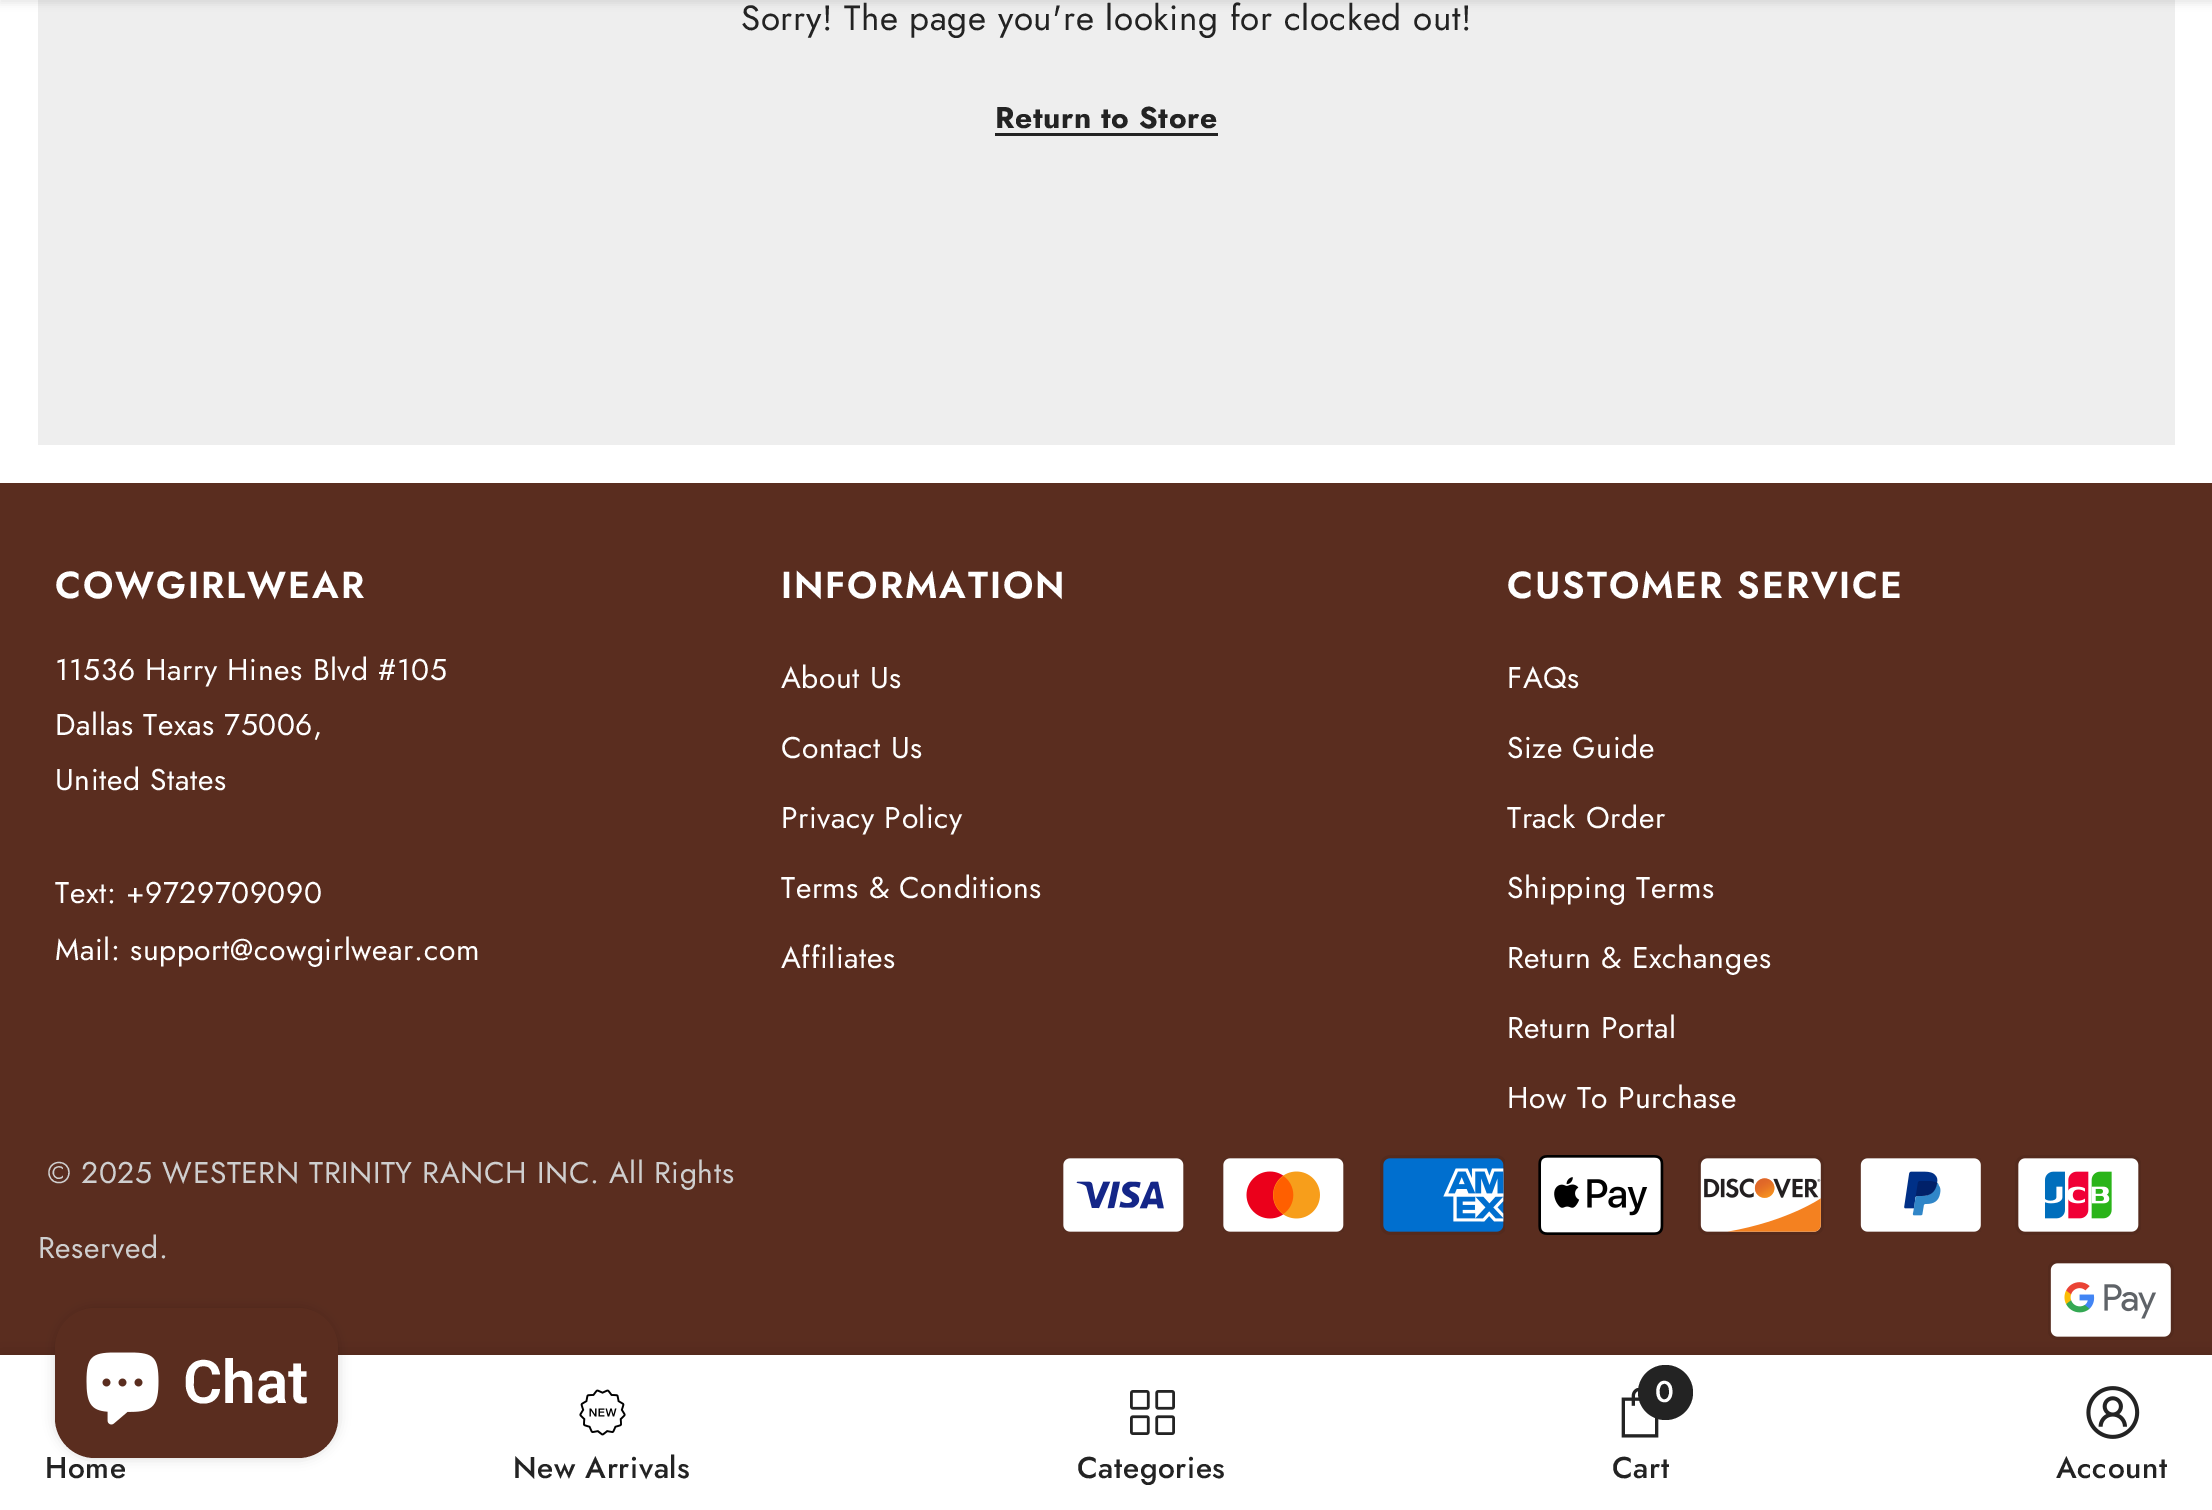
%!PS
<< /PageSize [2212 1510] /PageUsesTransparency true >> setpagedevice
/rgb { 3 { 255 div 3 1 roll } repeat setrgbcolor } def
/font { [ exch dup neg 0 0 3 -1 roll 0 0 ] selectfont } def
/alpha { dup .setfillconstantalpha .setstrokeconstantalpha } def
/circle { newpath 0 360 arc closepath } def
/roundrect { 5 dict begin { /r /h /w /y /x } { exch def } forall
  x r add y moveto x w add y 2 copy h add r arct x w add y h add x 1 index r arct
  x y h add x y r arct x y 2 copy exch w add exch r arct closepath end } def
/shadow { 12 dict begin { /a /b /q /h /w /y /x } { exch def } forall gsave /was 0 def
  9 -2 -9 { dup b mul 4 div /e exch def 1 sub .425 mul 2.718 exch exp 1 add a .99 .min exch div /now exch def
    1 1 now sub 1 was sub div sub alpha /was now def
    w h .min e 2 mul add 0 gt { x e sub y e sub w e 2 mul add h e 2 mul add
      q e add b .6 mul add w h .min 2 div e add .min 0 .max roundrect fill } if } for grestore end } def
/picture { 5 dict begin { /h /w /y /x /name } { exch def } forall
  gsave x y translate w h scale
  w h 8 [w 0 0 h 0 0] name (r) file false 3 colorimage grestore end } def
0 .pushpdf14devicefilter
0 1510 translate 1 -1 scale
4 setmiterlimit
255 255 255 rgb
0 0 2212 1510 rectfill
238 238 238 rgb
38 0 2137 445 rectfill
0 0 0 rgb
0 -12 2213 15 0 4 0.1 shadow
35 35 35 rgb
995 133 223 3 rectfill
90 45 31 rgb
0 483 2212 872 rectfill
(img/1.rgb) 1063 1158 121 74 picture
(img/2.rgb) 1223 1158 121 74 picture
(img/3.rgb) 1380 1155 125 80 picture
(img/4.rgb) 1538 1155 126 80 picture
(img/5.rgb) 1698 1155 126 80 picture
(img/6.rgb) 1860 1158 121 74 picture
(img/7.rgb) 2015 1155 126 80 picture
(img/8.rgb) 2048 1260 126 80 picture
0 0 0 rgb
0 1355 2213 155 0 11 0.12 shadow
255 255 255 rgb
0 1355 2212 155 rectfill
(img/9.rgb) 579 1389 47 47 picture
(img/10.rgb) 1130 1390 45 45 picture
(img/11.rgb) 1621 1388 38 50 picture
35 35 35 rgb
1665.5 1392.5 27.5 circle fill
(img/12.rgb) 2086 1386 54 53 picture
0 0 0 rgb
55 1308 283 150 40 6 0.15 shadow
/Jost-Regular 35 font
35 35 35 rgb
741 30 moveto 0.6 0 (Sorry! The page you're looking for clocked out!) ashow
/Jost-Bold 30 font
995 128 moveto 0.6 0 (Return to Store) ashow
/Jost-SemiBold 37.5 font
255 255 255 rgb
55 598 moveto 1.9 0 (COWGIRLWEAR) ashow
/Jost-Regular 30 font
55 680 moveto 0.6 0 (11536 Harry Hines Blvd #105) ashow
55 735 moveto 0.6 0 (Dallas Texas 75006,) ashow
55 790 moveto 0.6 0 (United States) ashow
55 903 moveto 0.6 0 (Text: +9729709090) ashow
55 960 moveto 0.6 0 (Mail: support@cowgirlwear.com) ashow
/Jost-SemiBold 37.5 font
781 598 moveto 1.9 0 (INFORMATION) ashow
/Jost-Regular 30 font
781 688 moveto 0.6 0 (About Us) ashow
781 758 moveto 0.6 0 (Contact Us) ashow
781 828 moveto 0.6 0 (Privacy Policy) ashow
781 898 moveto 0.6 0 (Terms & Conditions) ashow
781 968 moveto 0.6 0 (Affiliates) ashow
/Jost-SemiBold 37.5 font
1507 598 moveto 1.9 0 (CUSTOMER SERVICE) ashow
/Jost-Regular 30 font
1507 688 moveto 0.6 0 (FAQs) ashow
1507 758 moveto 0.6 0 (Size Guide) ashow
1507 828 moveto 0.6 0 (Track Order) ashow
1507 898 moveto 0.6 0 (Shipping Terms) ashow
1507 968 moveto 0.6 0 (Return & Exchanges) ashow
1507 1038 moveto 0.6 0 (Return Portal) ashow
1507 1108 moveto 0.6 0 (How To Purchase) ashow
207 207 207 rgb
47 1183 moveto 0.6 0 (© 2025 WESTERN TRINITY RANCH INC. All Rights) ashow
38 1258 moveto 0.6 0 (Reserved.) ashow
/Jost-Medium 30 font
35 35 35 rgb
45 1478 moveto 0.6 0 (Home) ashow
513 1478 moveto 0.6 0 (New Arrivals) ashow
1077 1478 moveto 0.6 0 (Categories) ashow
255 255 255 rgb
1655 1402 moveto (0) show
35 35 35 rgb
1612 1478 moveto 0.6 0 (Cart) ashow
2056 1478 moveto 0.6 0 (Account) ashow
90 45 31 rgb
55 1308 283 150 40 roundrect fill
(img/13.rgb) 86 1352 73 73 picture
/Roboto-SemiBold 60 font
255 255 255 rgb
183 1403 moveto (Chat) show
.poppdf14devicefilter showpage
